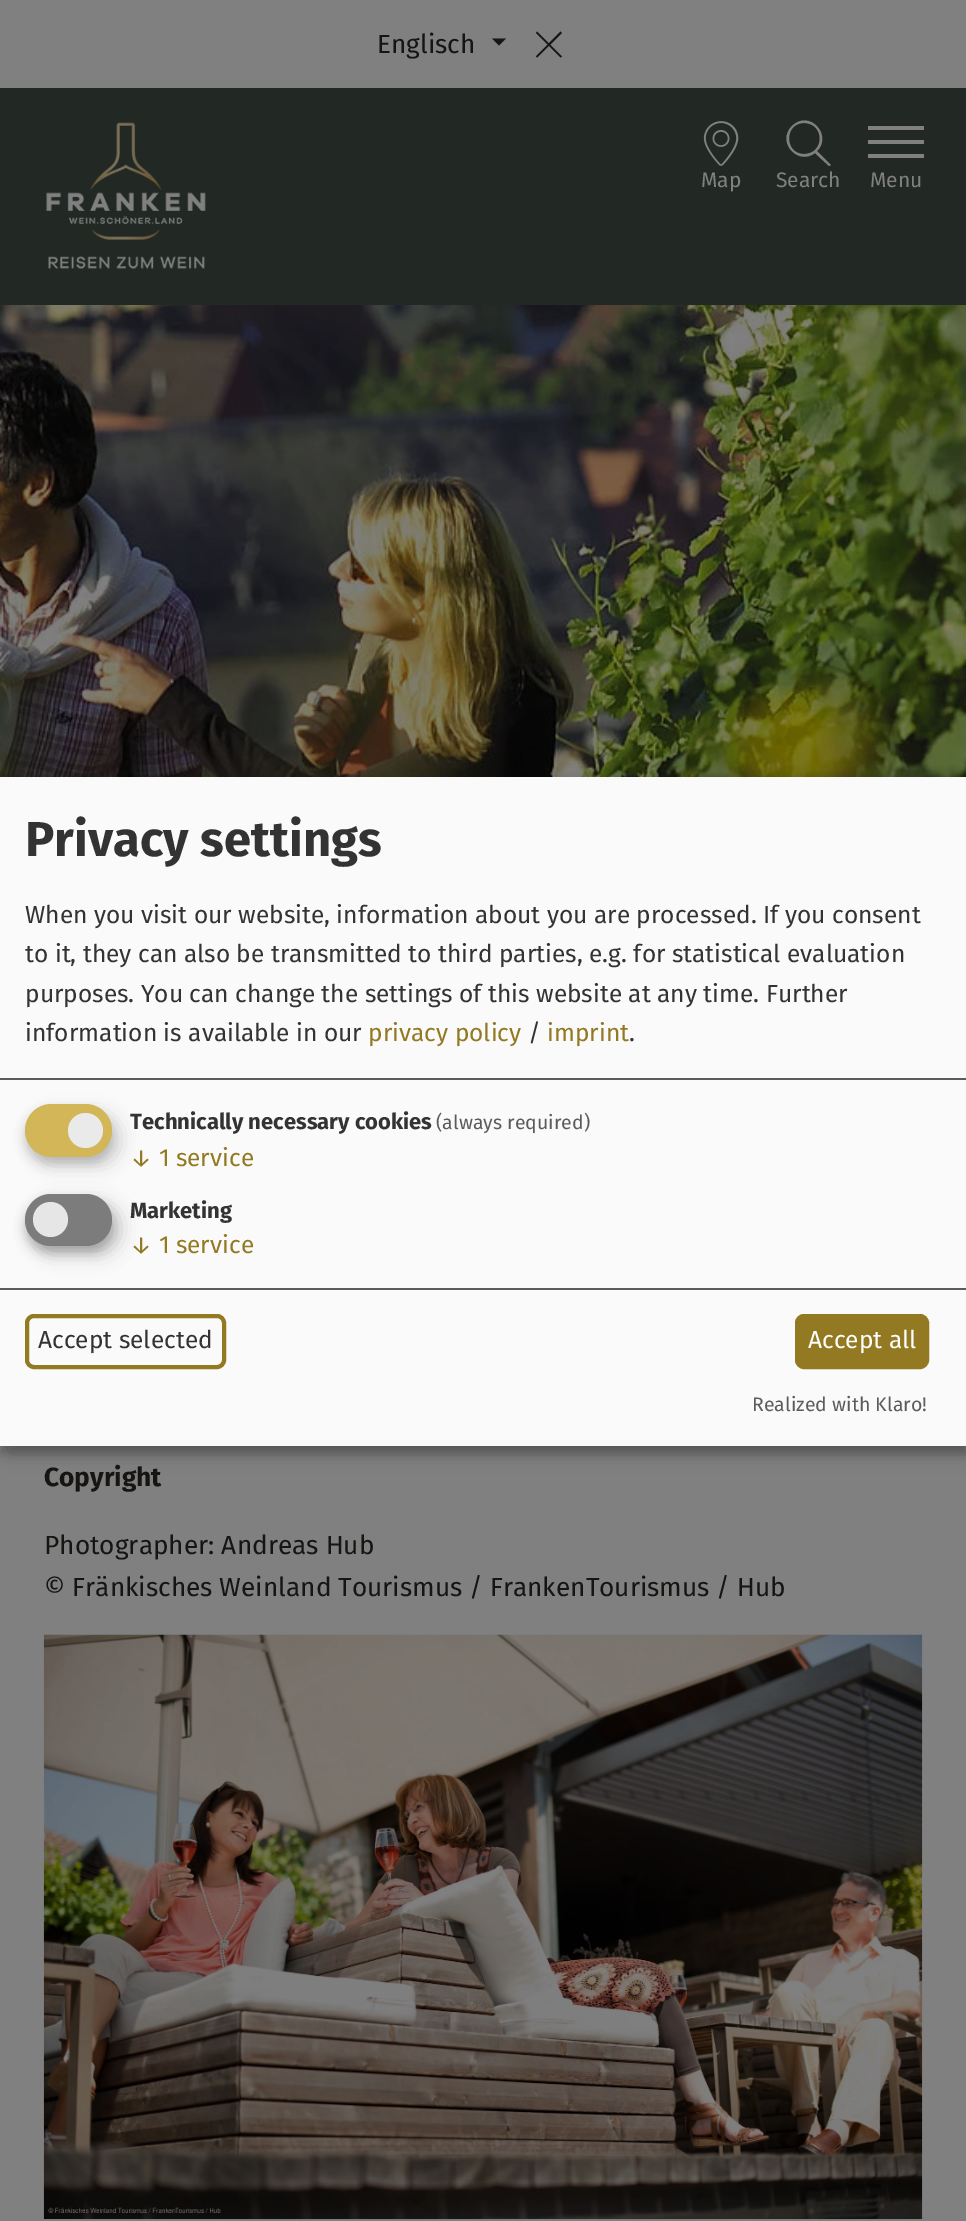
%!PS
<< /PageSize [966 2221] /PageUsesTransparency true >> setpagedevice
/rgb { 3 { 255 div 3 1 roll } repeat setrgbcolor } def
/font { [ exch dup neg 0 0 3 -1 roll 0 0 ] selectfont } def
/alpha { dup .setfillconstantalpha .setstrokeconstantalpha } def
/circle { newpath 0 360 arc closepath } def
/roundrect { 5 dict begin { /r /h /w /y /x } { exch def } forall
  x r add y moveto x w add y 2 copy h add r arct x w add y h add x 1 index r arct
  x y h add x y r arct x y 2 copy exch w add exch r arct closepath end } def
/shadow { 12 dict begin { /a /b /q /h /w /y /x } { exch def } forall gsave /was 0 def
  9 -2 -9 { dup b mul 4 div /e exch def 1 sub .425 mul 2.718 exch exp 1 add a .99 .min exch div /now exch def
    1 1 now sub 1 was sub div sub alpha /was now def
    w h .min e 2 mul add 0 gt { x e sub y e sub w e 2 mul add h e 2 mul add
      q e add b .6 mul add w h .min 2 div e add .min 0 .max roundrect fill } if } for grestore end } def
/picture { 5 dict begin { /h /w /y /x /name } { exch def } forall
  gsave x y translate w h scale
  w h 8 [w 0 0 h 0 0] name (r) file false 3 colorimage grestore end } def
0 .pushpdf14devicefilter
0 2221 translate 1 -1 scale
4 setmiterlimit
255 255 255 rgb
0 0 966 2221 rectfill
34 41 37 rgb
0 88 966 217 rectfill
128 128 128 rgb
0 0 966 88 rectfill
22 21 19 rgb
492 38.5 moveto 506 38.5 lineto 499 45.5 lineto closepath fill
537 31.5 moveto 562 56.5 lineto 560.5 57.5 lineto 536 33 lineto closepath fill
536 56.5 moveto 560.5 31.5 lineto 562 33 lineto 537 57.5 lineto closepath fill
(img/1.rgb) 46 122 160 147 picture
(img/2.rgb) 703 121 36 45 picture
128 128 128 rgb
829 166 moveto 815 153 lineto 798 166 776 142 792 126 curveto 809 109 833 135 817 151 curveto 831 165 lineto closepath 804 123 moveto 784 123 784 154 804 154 curveto 825 154 825 123 804 123 curveto closepath fill
[
  [868 126 56 4 128 128 128]
  [868 140 56 4 128 128 128]
  [868 154 56 4 128 128 128]
] { aload pop rgb rectfill } forall
(img/3.rgb) 0 305 966 472 picture
0 1446 966 775 rectfill
0 0 0 rgb
9 786 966 668 0 9 0.19 shadow
0 784 966 669 0 5 0.2 shadow
250 250 250 rgb
0 777 966 669 rectfill
92 92 92 rgb
0 1078 966 2 rectfill
0 0 0 rgb
33 1113 88 53 26.5 9 0.15 shadow
50 50 50 rgb
25 1111 87 53 26.5 5 0.2 shadow
210 182 87 rgb
25 1104 87 53 26.5 roundrect fill
234 234 234 rgb
85.5 1130.5 17.5 circle fill
0 0 0 rgb
33 1202 88 53 26.5 9 0.19 shadow
25 1201 87 52 26 5 0.2 shadow
124 124 124 rgb
25 1194 87 52 26 roundrect fill
230 230 230 rgb
50.5 1219.5 17.5 circle fill
92 92 92 rgb
0 1288 966 2 rectfill
147 121 34 rgb
4 setlinewidth
27 1316 197 51 7 roundrect stroke
797 1316 130 51 7 roundrect gsave fill grestore
stroke
(img/4.rgb) 43 1634 880 585 picture
/FiraSans-Regular 26.25 font
22 21 19 rgb
377 53 moveto (Englisch) show
/FiraSans-Regular 21 font
128 128 128 rgb
[
  [(Map) 701 187]
  [(Search) 776 187]
  [(Menu) 870 187]
] { aload pop moveto show } forall
/FiraSans-Bold 49 font
51 51 51 rgb
25 856 moveto (Privacy settings) show
/FiraSans-Regular 24.5 font
[
  [(When you visit our website, information about you are processed. If you consent) 25 923]
  [(to it, they can also be transmitted to third parties, e.g. for statistical evaluation) 25 962]
  [(purposes. You can change the settings of this website at any time. Further) 25 1002]
  [(information is available in our) 25 1041]
] { aload pop moveto show } forall
147 121 34 rgb
368 1041 moveto (privacy policy) show
51 51 51 rgb
528 1041 moveto (/) show
147 121 34 rgb
547 1041 moveto (imprint) show
51 51 51 rgb
629 1041 moveto (.) show
/FiraSans-Bold 22 font
130 1129 moveto (Technically necessary cookies) show
/FiraSans-Regular 19.5 font
92 92 92 rgb
436 1129 moveto (\(always required\)) show
/FiraSans-Regular 24.5 font
147 121 34 rgb
130 1166 moveto (↓ 1 service) show
/FiraSans-Bold 22 font
51 51 51 rgb
130 1218 moveto (Marketing) show
/FiraSans-Regular 24.5 font
147 121 34 rgb
130 1253 moveto (↓ 1 service) show
51 51 51 rgb
38 1348 moveto (Accept selected) show
255 255 255 rgb
808 1348 moveto (Accept all) show
/FiraSans-Regular 19.5 font
92 92 92 rgb
752 1411 moveto (Realized with Klaro!) show
/FiraSans-Bold 26.25 font
22 21 19 rgb
44 1486 moveto (Copyright) show
/FiraSans-Regular 26.25 font
44 1554 moveto (Photographer: Andreas Hub) show
44 1596 moveto (© Fränkisches Weinland Tourismus / FrankenTourismus / Hub) show
.poppdf14devicefilter showpage
